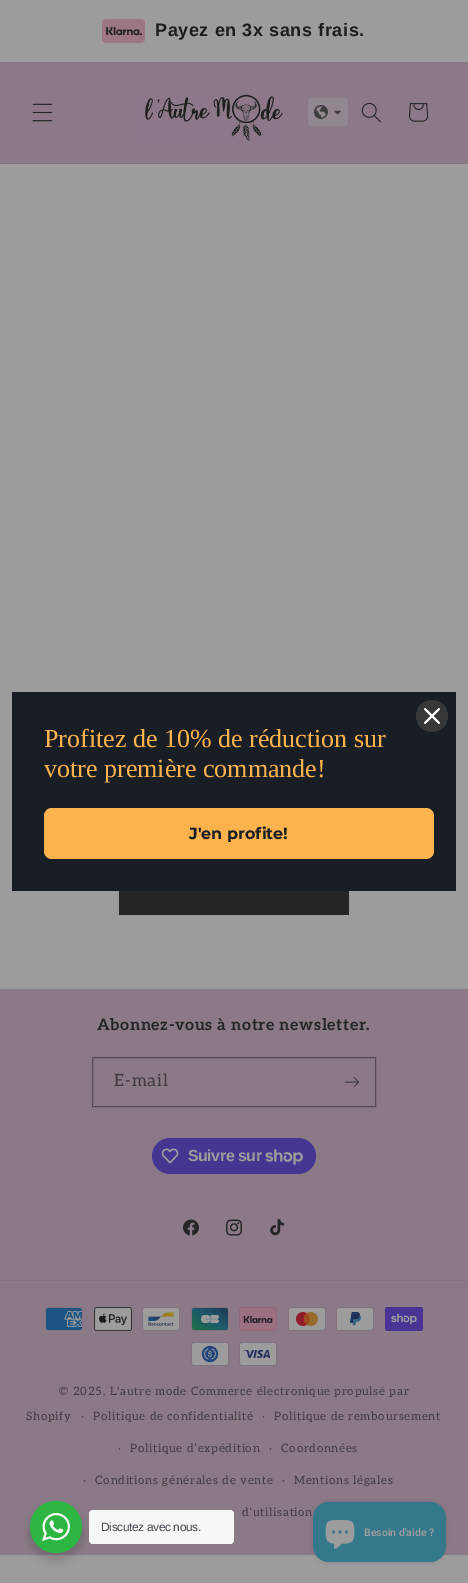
%!PS
<< /PageSize [468 1583] /PageUsesTransparency true >> setpagedevice
/rgb { 3 { 255 div 3 1 roll } repeat setrgbcolor } def
/font { [ exch dup neg 0 0 3 -1 roll 0 0 ] selectfont } def
/alpha { dup .setfillconstantalpha .setstrokeconstantalpha } def
/circle { newpath 0 360 arc closepath } def
/roundrect { 5 dict begin { /r /h /w /y /x } { exch def } forall
  x r add y moveto x w add y 2 copy h add r arct x w add y h add x 1 index r arct
  x y h add x y r arct x y 2 copy exch w add exch r arct closepath end } def
/shadow { 12 dict begin { /a /b /q /h /w /y /x } { exch def } forall gsave /was 0 def
  9 -2 -9 { dup b mul 4 div /e exch def 1 sub .425 mul 2.718 exch exp 1 add a .99 .min exch div /now exch def
    1 1 now sub 1 was sub div sub alpha /was now def
    w h .min e 2 mul add 0 gt { x e sub y e sub w e 2 mul add h e 2 mul add
      q e add b .6 mul add w h .min 2 div e add .min 0 .max roundrect fill } if } for grestore end } def
/picture { 5 dict begin { /h /w /y /x /name } { exch def } forall
  gsave x y translate w h scale
  w h 8 [w 0 0 h 0 0] name (r) file false 3 colorimage grestore end } def
0 .pushpdf14devicefilter
0 1583 translate 1 -1 scale
4 setmiterlimit
156 156 156 rgb
0 0 468 1583 rectfill
(img/1.rgb) 102 19 43 24 picture
140 121 136 rgb
0 62 468 101 rectfill
132 114 128 rgb
0 163 468 1 rectfill
(img/2.rgb) 32 103 20 19 picture
(img/3.rgb) 132 94 151 51 picture
146 135 144 rgb
308 98 40 28 4 roundrect fill
(img/4.rgb) 314 105 14 14 picture
(img/5.rgb) 334 110 7 5 picture
(img/6.rgb) 361 102 20 21 picture
(img/7.rgb) 409 103 20 19 picture
24 30 36 rgb
12 692 444 199 rectfill
56 56 56 rgb
432 716 16 circle fill
(img/8.rgb) 424 708 16 16 picture
252 179 77 rgb
44 808 390 51 8 roundrect fill
37 37 37 rgb
119 891 230 24 rectfill
140 121 136 rgb
0 989 468 566 rectfill
84 75 82 rgb
92.5 1057.5 283 49 rectstroke
(img/9.rgb) 344 1077 15 11 picture
70 54 146 rgb
152 1138 164 36 18 roundrect fill
(img/10.rgb) 161 1148 18 16 picture
(img/11.rgb) 265 1149 38 16 picture
(img/12.rgb) 183 1219 16 17 picture
(img/13.rgb) 226 1219 16 17 picture
(img/14.rgb) 270 1219 15 17 picture
132 114 128 rgb
0 1280 468 1 rectfill
(img/15.rgb) 45 1307 38 24 picture
(img/16.rgb) 94 1307 38 24 picture
(img/17.rgb) 142 1307 38 24 picture
(img/18.rgb) 191 1307 38 24 picture
(img/19.rgb) 239 1307 38 24 picture
(img/20.rgb) 288 1307 38 24 picture
(img/21.rgb) 336 1307 38 24 picture
(img/22.rgb) 385 1307 38 24 picture
(img/23.rgb) 191 1342 38 24 picture
(img/24.rgb) 239 1342 38 24 picture
0 0 0 rgb
28 1505 56 56 28 4 0.14 shadow
45 183 66 rgb
56 1527 26 circle fill
(img/25.rgb) 42 1513 28 28 picture
245 247 249 rgb
89 1510 145 34 4 roundrect fill
28 28 28 rgb
313 1502 133 60 16 2.5 0.15 shadow
52 121 139 rgb
313 1502 133 60 16 roundrect fill
(img/26.rgb) 325 1520 30 29 picture
/LiberationSans-Bold 18 font
28 28 28 rgb
155 36 moveto 0.6 0 (Payez en 3x sans frais.) ashow
/LiberationSerif-Regular 26 font
252 179 77 rgb
44 747 moveto (Profitez de 10% de réduction sur) show
44 777 moveto (votre première commande!) show
/Montserrat-Bold 16 font
24 30 36 rgb
189 839 moveto (J'en profite!) show
/Aleo-Bold 16 font
37 37 37 rgb
97 1030 moveto 0.6 0 (Abonnez-vous à notre newsletter.) ashow
/Aleo-Regular 17 font
63 58 62 rgb
114 1086 moveto 1 0 (E-mail) ashow
/LiberationSans-Bold 16 font
156 156 156 rgb
188 1161 moveto -0.5 0 (Suivre sur) ashow
/Aleo-Regular 11.55 font
63 58 62 rgb
59 1395 moveto 0.73 0 (© 2025, L'autre mode Commerce électronique propulsé par) ashow
26 1420 moveto 0.73 0 (Shopify) ashow
/Aleo-Regular 10.5 font
81 1420 moveto 0.73 0 (·) ashow
/Aleo-Regular 11.55 font
93 1420 moveto 0.73 0 (Politique de confidentialité) ashow
/Aleo-Regular 10.5 font
262 1420 moveto 0.73 0 (·) ashow
/Aleo-Regular 11.55 font
274 1420 moveto 0.73 0 (Politique de remboursement) ashow
/Aleo-Regular 10.5 font
118 1452 moveto 0.73 0 (·) ashow
/Aleo-Regular 11.55 font
130 1452 moveto 0.73 0 (Politique d’expédition) ashow
/Aleo-Regular 10.5 font
269 1452 moveto 0.73 0 (·) ashow
/Aleo-Regular 11.55 font
281 1452 moveto 0.73 0 (Coordonnées) ashow
/Aleo-Regular 10.5 font
83 1484 moveto 0.73 0 (·) ashow
/Aleo-Regular 11.55 font
95 1484 moveto 0.73 0 (Conditions générales de vente) ashow
/Aleo-Regular 10.5 font
282 1484 moveto 0.73 0 (·) ashow
/Aleo-Regular 11.55 font
294 1484 moveto 0.73 0 (Mentions légales) ashow
242 1516 moveto 0.73 0 (d’utilisation) ashow
/LiberationSans-Regular 12 font
67 71 78 rgb
101 1531 moveto -0.4 0 (Discutez avec nous.) ashow
/Roboto-SemiBold 10.5 font
156 156 156 rgb
364 1536 moveto (Besoin d'aide ?) show
.poppdf14devicefilter showpage
